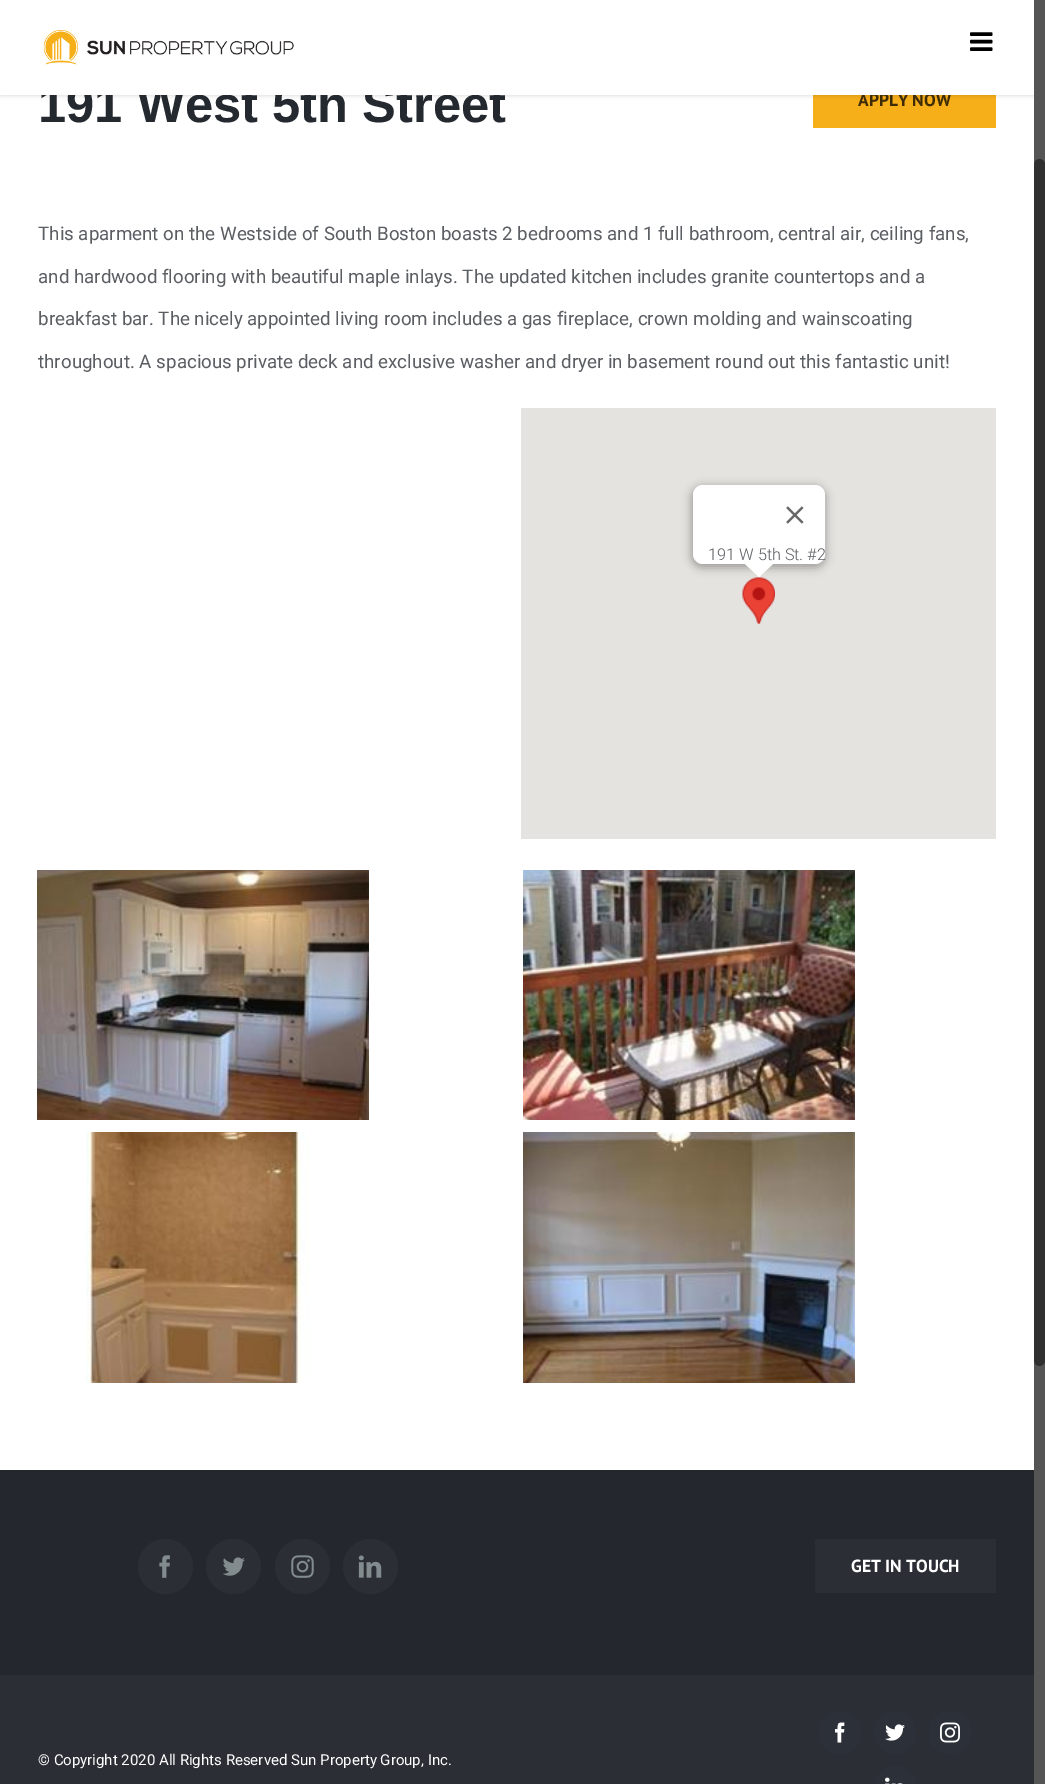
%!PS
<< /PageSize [1045 1784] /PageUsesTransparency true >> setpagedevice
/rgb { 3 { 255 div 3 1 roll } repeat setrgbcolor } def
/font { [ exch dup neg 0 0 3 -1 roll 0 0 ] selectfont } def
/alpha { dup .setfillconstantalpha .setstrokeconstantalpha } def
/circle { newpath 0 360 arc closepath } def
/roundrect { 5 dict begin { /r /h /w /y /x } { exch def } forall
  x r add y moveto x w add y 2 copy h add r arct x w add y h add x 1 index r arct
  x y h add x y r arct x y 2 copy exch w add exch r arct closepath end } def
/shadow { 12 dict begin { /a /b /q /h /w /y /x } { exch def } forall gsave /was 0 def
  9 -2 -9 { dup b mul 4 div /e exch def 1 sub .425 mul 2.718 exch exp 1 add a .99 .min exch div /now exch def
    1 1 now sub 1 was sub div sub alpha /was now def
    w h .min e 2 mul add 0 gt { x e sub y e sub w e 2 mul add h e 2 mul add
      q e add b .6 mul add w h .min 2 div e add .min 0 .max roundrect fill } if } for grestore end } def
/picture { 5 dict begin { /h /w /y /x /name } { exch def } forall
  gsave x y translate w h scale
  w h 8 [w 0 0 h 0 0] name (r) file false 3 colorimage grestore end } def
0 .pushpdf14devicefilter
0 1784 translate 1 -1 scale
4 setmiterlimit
255 255 255 rgb
0 0 1045 1784 rectfill
247 175 25 rgb
813 95 183 33 rectfill
0 0 0 rgb
0 1 1045 95 0 2 0.12 shadow
229 227 223 rgb
521 408 475 431 rectfill
(img/4.rgb) 742 577 33 47 picture
0 0 0 rgb
691 486 135 82 11 4.5 0.3 shadow
255 255 255 rgb
693 485 132 79 10 roundrect fill
(img/3.rgb) 786 506 18 18 picture
774 563 moveto 744 563 lineto 759 577 lineto closepath fill
(img/5.rgb) 37 870 332 250 picture
(img/6.rgb) 523 870 332 250 picture
(img/7.rgb) 86 1132 224 251 picture
(img/8.rgb) 523 1132 332 251 picture
36 39 45 rgb
0 1470 1034 205 rectfill
43 46 53 rgb
165.5 1566.5 27.5 circle fill
(img/9.rgb) 159 1555 11 23 picture
233.5 1566.5 27.5 circle fill
(img/10.rgb) 222 1557 23 19 picture
302.5 1566.5 27.5 circle fill
(img/11.rgb) 291 1555 23 23 picture
370.5 1566.5 27.5 circle fill
(img/12.rgb) 358 1555 24 23 picture
815 1539 181 54 rectfill
0 1675 1034 109 rectfill
44 48 56 rgb
819 1711 42 43 21 roundrect fill
(img/13.rgb) 835 1722 10 21 picture
874 1711 42 43 21 roundrect fill
(img/14.rgb) 885 1724 20 17 picture
929 1711 42 43 21 roundrect fill
(img/15.rgb) 940 1722 20 21 picture
874 1766 42 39 21 roundrect fill
(img/16.rgb) 885 1777 18 7 picture
85 85 85 rgb
1034 0 11 1784 rectfill
48 48 48 rgb
1034 159 11 1207 5.5 roundrect fill
/Arimo-Bold 50.75 font
36 41 48 rgb
38 122 moveto (191 West 5th Street) show
/PTSans-Bold 17.5 font
62 44 6 rgb
858 106 moveto (APPLY NOW) show
255 255 255 rgb
0 0 1034 95 rectfill
(img/2.rgb) 970 32 23 19 picture
(img/1.rgb) 43 30 251 35 picture
/Roboto-Regular 18.75 font
90 93 98 rgb
[
  [(This aparment on the Westside of South Boston boasts 2 bedrooms and 1 full bathroom, central air, ceiling fans,) 38 240]
  [(and hardwood flooring with beautiful maple inlays. The updated kitchen includes granite countertops and a) 38 283]
  [(breakfast bar. The nicely appointed living room includes a gas fireplace, crown molding and wainscoating) 38 325]
  [(throughout. A spacious private deck and exclusive washer and dryer in basement round out this fantastic unit!) 38 368]
] { aload pop moveto show } forall
/Roboto-Light 16.25 font
708 560 moveto (191 W 5th St. #2) show
/PTSans-Bold 17.5 font
255 255 255 rgb
851 1572 moveto (GET IN TOUCH) show
/Roboto-Regular 15 font
38 1765 moveto (© Copyright 2020 All Rights Reserved Sun Property Group, Inc.) show
.poppdf14devicefilter showpage
